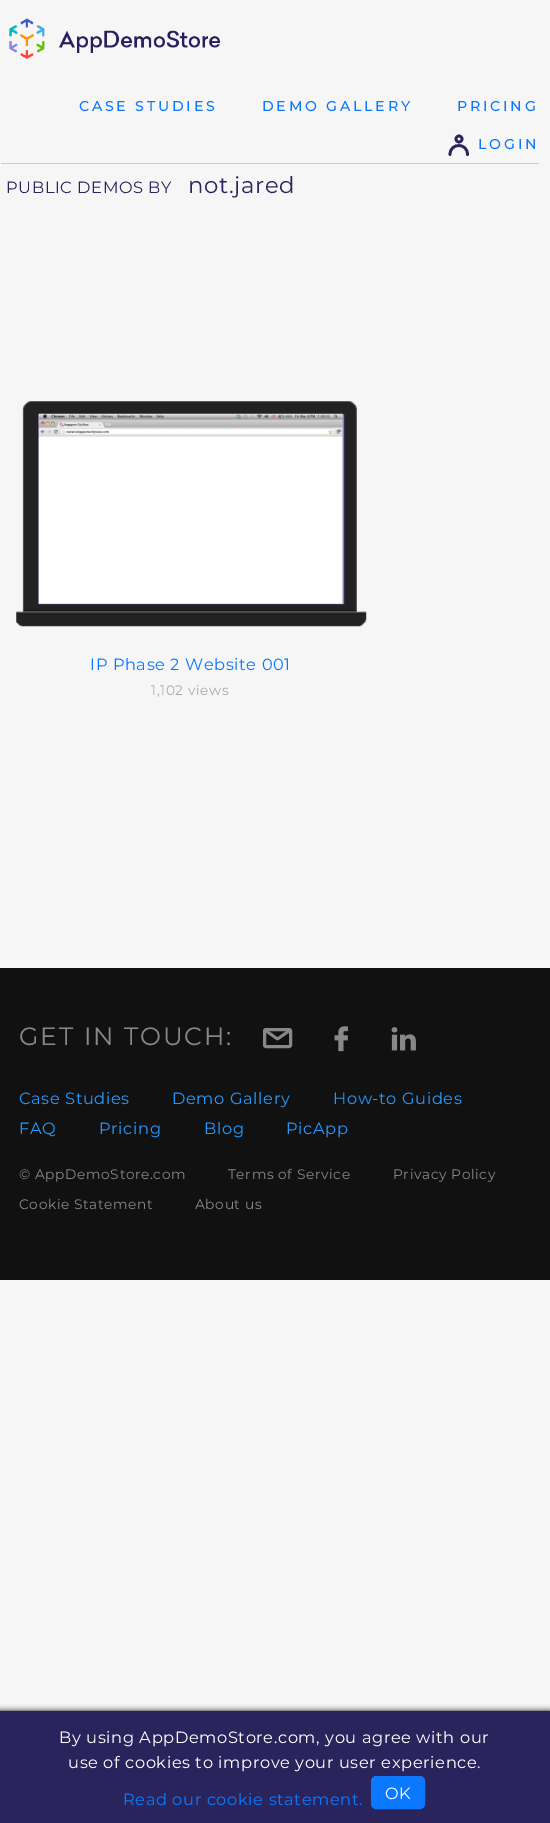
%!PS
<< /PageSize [550 1823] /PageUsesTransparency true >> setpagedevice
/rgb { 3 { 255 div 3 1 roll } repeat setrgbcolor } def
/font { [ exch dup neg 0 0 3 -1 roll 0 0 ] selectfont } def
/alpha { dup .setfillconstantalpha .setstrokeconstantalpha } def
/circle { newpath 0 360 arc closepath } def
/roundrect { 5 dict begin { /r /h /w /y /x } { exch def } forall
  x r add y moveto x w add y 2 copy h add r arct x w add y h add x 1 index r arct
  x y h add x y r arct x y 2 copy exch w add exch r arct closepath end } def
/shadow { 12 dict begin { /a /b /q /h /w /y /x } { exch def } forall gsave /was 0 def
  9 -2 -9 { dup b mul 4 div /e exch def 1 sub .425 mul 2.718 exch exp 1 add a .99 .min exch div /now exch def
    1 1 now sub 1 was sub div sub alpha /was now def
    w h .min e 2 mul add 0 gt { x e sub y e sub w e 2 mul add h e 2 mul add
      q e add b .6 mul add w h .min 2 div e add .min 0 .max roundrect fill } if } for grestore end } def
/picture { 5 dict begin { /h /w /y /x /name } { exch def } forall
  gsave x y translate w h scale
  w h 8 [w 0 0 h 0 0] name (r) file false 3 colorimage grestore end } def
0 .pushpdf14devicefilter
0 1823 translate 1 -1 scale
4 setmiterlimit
246 246 246 rgb
0 0 550 1823 rectfill
(img/1.rgb) 9 18 211 41 picture
204 204 204 rgb
1 163 538 1 rectfill
41 36 92 rgb
2.7 setlinewidth
1 setlinecap
450 154.5 moveto 450 142.5 467.5 142.5 467.5 154.5 curveto stroke
0 setlinecap
459 139 3 circle stroke
(img/2.rgb) 16 401 351 226 picture
(img/3.rgb) 38 413 305 191 picture
17 17 17 rgb
0 968 550 312 rectfill
136 136 136 rgb
3 setlinewidth
264.5 1029.5 26 17 1.5 roundrect stroke
2.8 setlinewidth
1 setlinecap
1 setlinejoin
265.5 1030.5 moveto 277.5 1039 lineto 289.5 1030.5 lineto stroke
(img/4.rgb) 334 1026 14 26 picture
(img/5.rgb) 391 1027 25 24 picture
0 0 0 rgb
0 1711 550 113 0 3 1 shadow
41 36 92 rgb
0 1711 550 112 rectfill
10 120 255 rgb
371.5 1776.5 53 32 4.5 roundrect gsave fill grestore
1 setlinewidth
0 setlinecap
0 setlinejoin
stroke
/Montserrat-Bold 13.75 font
79 111 moveto 3.1 0 (CASE STUDIES) ashow
262 111 moveto 3.1 0 (DEMO GALLERY) ashow
457 111 moveto 3.1 0 (PRICING) ashow
478 149 moveto 3.1 0 (LOGIN) ashow
/Montserrat-Thin 16.25 font
41 36 92 rgb
6 193 moveto 0.6 0 (PUBLIC DEMOS BY) ashow
/Montserrat-Thin 22.75 font
188 193 moveto 0.6 0 (not.jared) ashow
/Montserrat-Thin 16.25 font
10 120 255 rgb
90 670 moveto 0.6 0 (IP Phase 2 Website 001) ashow
/Montserrat-Thin 13.75 font
169 169 169 rgb
151 695 moveto 0.6 0 (1,102 views) ashow
/Montserrat-Thin 25 font
136 136 136 rgb
19 1045 moveto 1.9 0 (GET IN TOUCH:) ashow
/Montserrat-Thin 16.25 font
34 153 255 rgb
19 1104 moveto 0.6 0 (Case Studies) ashow
172 1104 moveto 0.6 0 (Demo Gallery) ashow
333 1104 moveto 0.6 0 (How-to Guides) ashow
19 1134 moveto 0.6 0 (FAQ) ashow
99 1134 moveto 0.6 0 (Pricing) ashow
204 1134 moveto 0.6 0 (Blog) ashow
286 1134 moveto 0.6 0 (PicApp) ashow
/Montserrat-Thin 13.75 font
136 136 136 rgb
19 1179 moveto 0.6 0 (© AppDemoStore.com) ashow
228 1179 moveto 0.6 0 (Terms of Service) ashow
393 1179 moveto 0.6 0 (Privacy Policy) ashow
19 1209 moveto 0.6 0 (Cookie Statement) ashow
195 1209 moveto 0.6 0 (About us) ashow
/Montserrat-Thin 16.25 font
255 255 255 rgb
59 1743 moveto 0.6 0 (By using AppDemoStore.com, you agree with our) ashow
68 1768 moveto 0.6 0 (use of cookies to improve your user experience.) ashow
10 120 255 rgb
123 1805 moveto 0.6 0 (Read our cookie statement.) ashow
255 255 255 rgb
385 1799 moveto 0.6 0 (OK) ashow
.poppdf14devicefilter showpage
